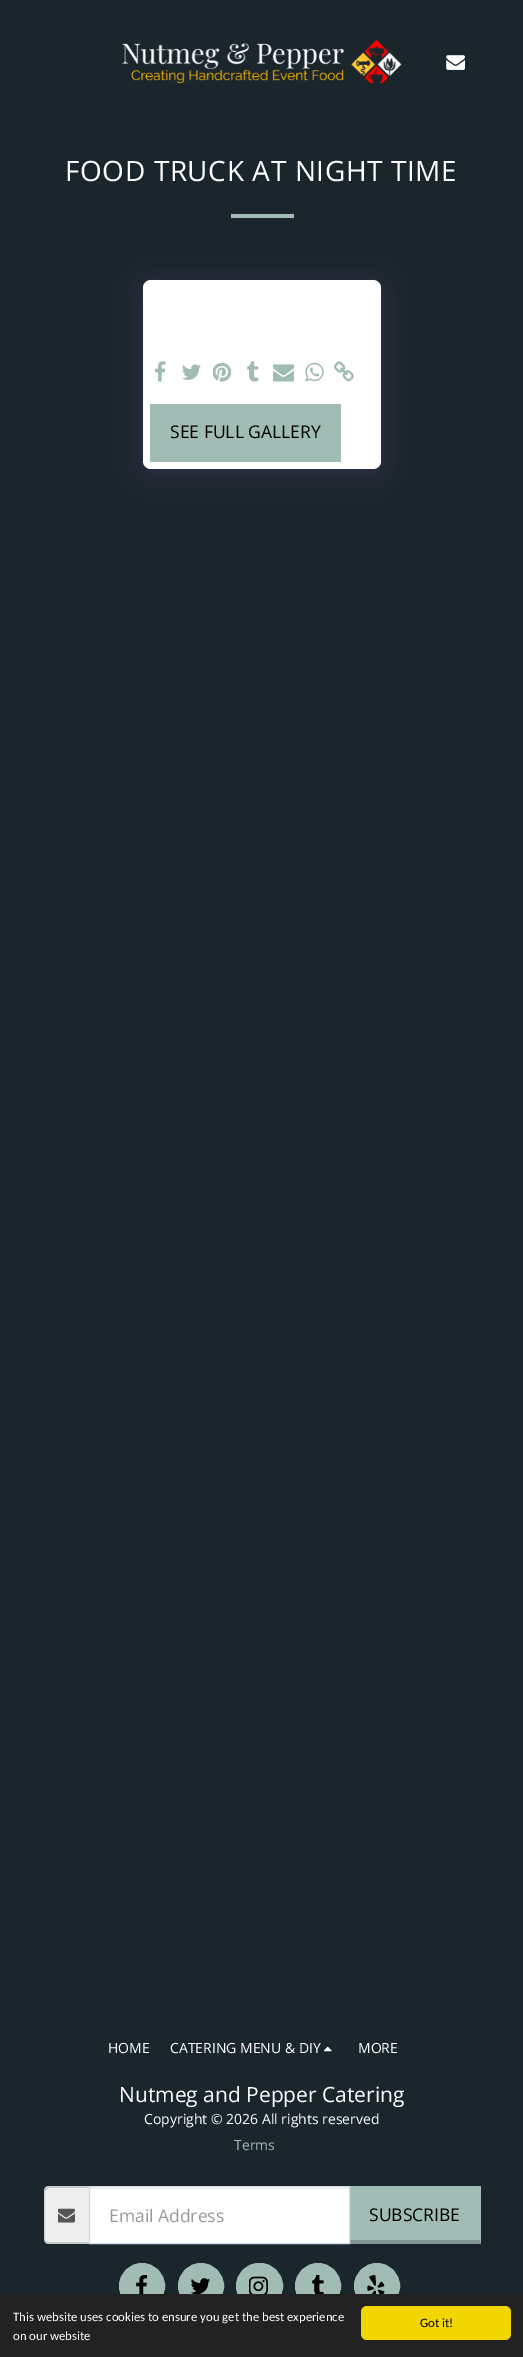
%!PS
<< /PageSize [523 2357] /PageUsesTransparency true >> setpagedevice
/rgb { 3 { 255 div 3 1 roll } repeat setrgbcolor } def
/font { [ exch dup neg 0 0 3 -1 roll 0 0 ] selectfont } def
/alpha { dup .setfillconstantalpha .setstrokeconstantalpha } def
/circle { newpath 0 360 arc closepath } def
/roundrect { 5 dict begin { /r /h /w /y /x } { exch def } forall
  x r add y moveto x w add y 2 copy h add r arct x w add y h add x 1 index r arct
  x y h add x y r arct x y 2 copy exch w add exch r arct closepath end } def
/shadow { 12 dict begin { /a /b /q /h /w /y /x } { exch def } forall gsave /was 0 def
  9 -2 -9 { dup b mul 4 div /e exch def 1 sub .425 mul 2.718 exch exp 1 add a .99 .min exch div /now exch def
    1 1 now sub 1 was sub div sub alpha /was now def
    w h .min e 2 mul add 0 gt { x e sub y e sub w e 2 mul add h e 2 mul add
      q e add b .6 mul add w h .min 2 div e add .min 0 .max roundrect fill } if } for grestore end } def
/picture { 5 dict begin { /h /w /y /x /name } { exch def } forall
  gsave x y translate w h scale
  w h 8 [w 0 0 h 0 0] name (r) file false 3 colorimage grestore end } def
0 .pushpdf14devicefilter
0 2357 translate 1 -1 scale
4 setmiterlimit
27 38 44 rgb
0 0 523 2357 rectfill
(img/1.rgb) 122 40 280 44 picture
(img/2.rgb) 446 55 19 15 picture
161 188 180 rgb
231 214 63 4 rectfill
77 63 122 rgb
143 284 238 189 8 12.5 0.4 shadow
255 255 255 rgb
143 280 238 189 8 roundrect fill
(img/3.rgb) 154 361 12 21 picture
(img/4.rgb) 182 364 19 16 picture
(img/5.rgb) 213 362 18 20 picture
(img/6.rgb) 247 361 12 21 picture
(img/7.rgb) 273 364 21 18 picture
(img/8.rgb) 305 362 19 20 picture
(img/9.rgb) 334 361 20 21 picture
[
  [151 405 189 53 161 188 180]
  [150 404 191 1 161 188 180]
  [340 404 1 57 161 188 180]
  [150 458 191 4 161 188 180]
  [150 404 1 57 161 188 180]
] { aload pop rgb rectfill } forall
(img/10.rgb) 324 2046 8 6 picture
238 238 238 rgb
49 2188 moveto 89 2188 lineto 89 2243 lineto 49 2243 lineto 47 2243 45 2241 45 2239 curveto 45 2192 lineto 45 2190 47 2188 49 2188 curveto closepath fill
204 204 204 rgb
49 2186 moveto 89 2186 lineto 89 2244 lineto 49 2244 lineto 46 2244 44 2242 44 2239 curveto 44 2191 lineto 44 2188 46 2186 49 2186 curveto closepath 49 2188 moveto 89 2188 lineto 89 2242 lineto 49 2242 lineto 47 2242 45 2241 45 2239 curveto 45 2191 lineto 45 2189 47 2188 49 2188 curveto closepath eofill
(img/11.rgb) 58 2208 17 15 picture
[
  [90 2187 259 56 255 255 255]
  [90 2188 259 1 236 236 236]
  [350 2186 131 58 161 188 180]
] { aload pop rgb rectfill } forall
129 150 144 rgb
481 2244 moveto 349 2244 lineto 350 2240 lineto 480 2240 lineto closepath fill
212 215 229 rgb
89.5 2186.5 260 57 rectstroke
161 188 180 rgb
142 2286 22.5 circle gsave fill grestore
stroke
(img/12.rgb) 136 2275 12 19 picture
201 2286 22.5 circle gsave fill grestore
stroke
(img/13.rgb) 190 2278 20 16 picture
236.5 2263.5 46 45 22.5 roundrect gsave fill grestore
stroke
(img/14.rgb) 249 2276 19 18 picture
318 2286 22.5 circle gsave fill grestore
stroke
(img/15.rgb) 312 2275 12 19 picture
377 2286 22.5 circle gsave fill grestore
stroke
(img/16.rgb) 367 2275 18 19 picture
34 34 34 rgb
0 2294 523 63 rectfill
241 214 0 rgb
361 2306 150 34 6 roundrect fill
/OpenSans-Regular 28 font
255 255 255 rgb
65 181 moveto 0.6 0 (FOOD TRUCK AT NIGHT TIME) ashow
/OpenSans-Regular 17.5 font
0 0 0 rgb
170 438 moveto (SEE FULL GALLERY) show
/OpenSans-Regular 14 font
255 255 255 rgb
[
  [(HOME) 108 2053]
  [(CATERING MENU & DIY) 170 2053]
  [(MORE) 358 2053]
] { aload pop moveto show } forall
/OpenSans-Regular 21 font
119 2102 moveto (Nutmeg and Pepper Catering) show
/OpenSans-Regular 14 font
144 2124 moveto (Copyright © 2026 All rights reserved) show
161 188 180 rgb
234 2150 moveto (Terms) show
/OpenSans-Regular 17.5 font
153 153 153 rgb
109 2222 moveto (Email Address) show
0 0 0 rgb
369 2221 moveto (SUBSCRIBE) show
/Carlito-Regular 12.75 font
255 255 255 rgb
13 2321 moveto (This website uses cookies to ensure you get the best experience) show
13 2340 moveto (on our website) show
0 0 0 rgb
420 2327 moveto (Got it!) show
.poppdf14devicefilter showpage
